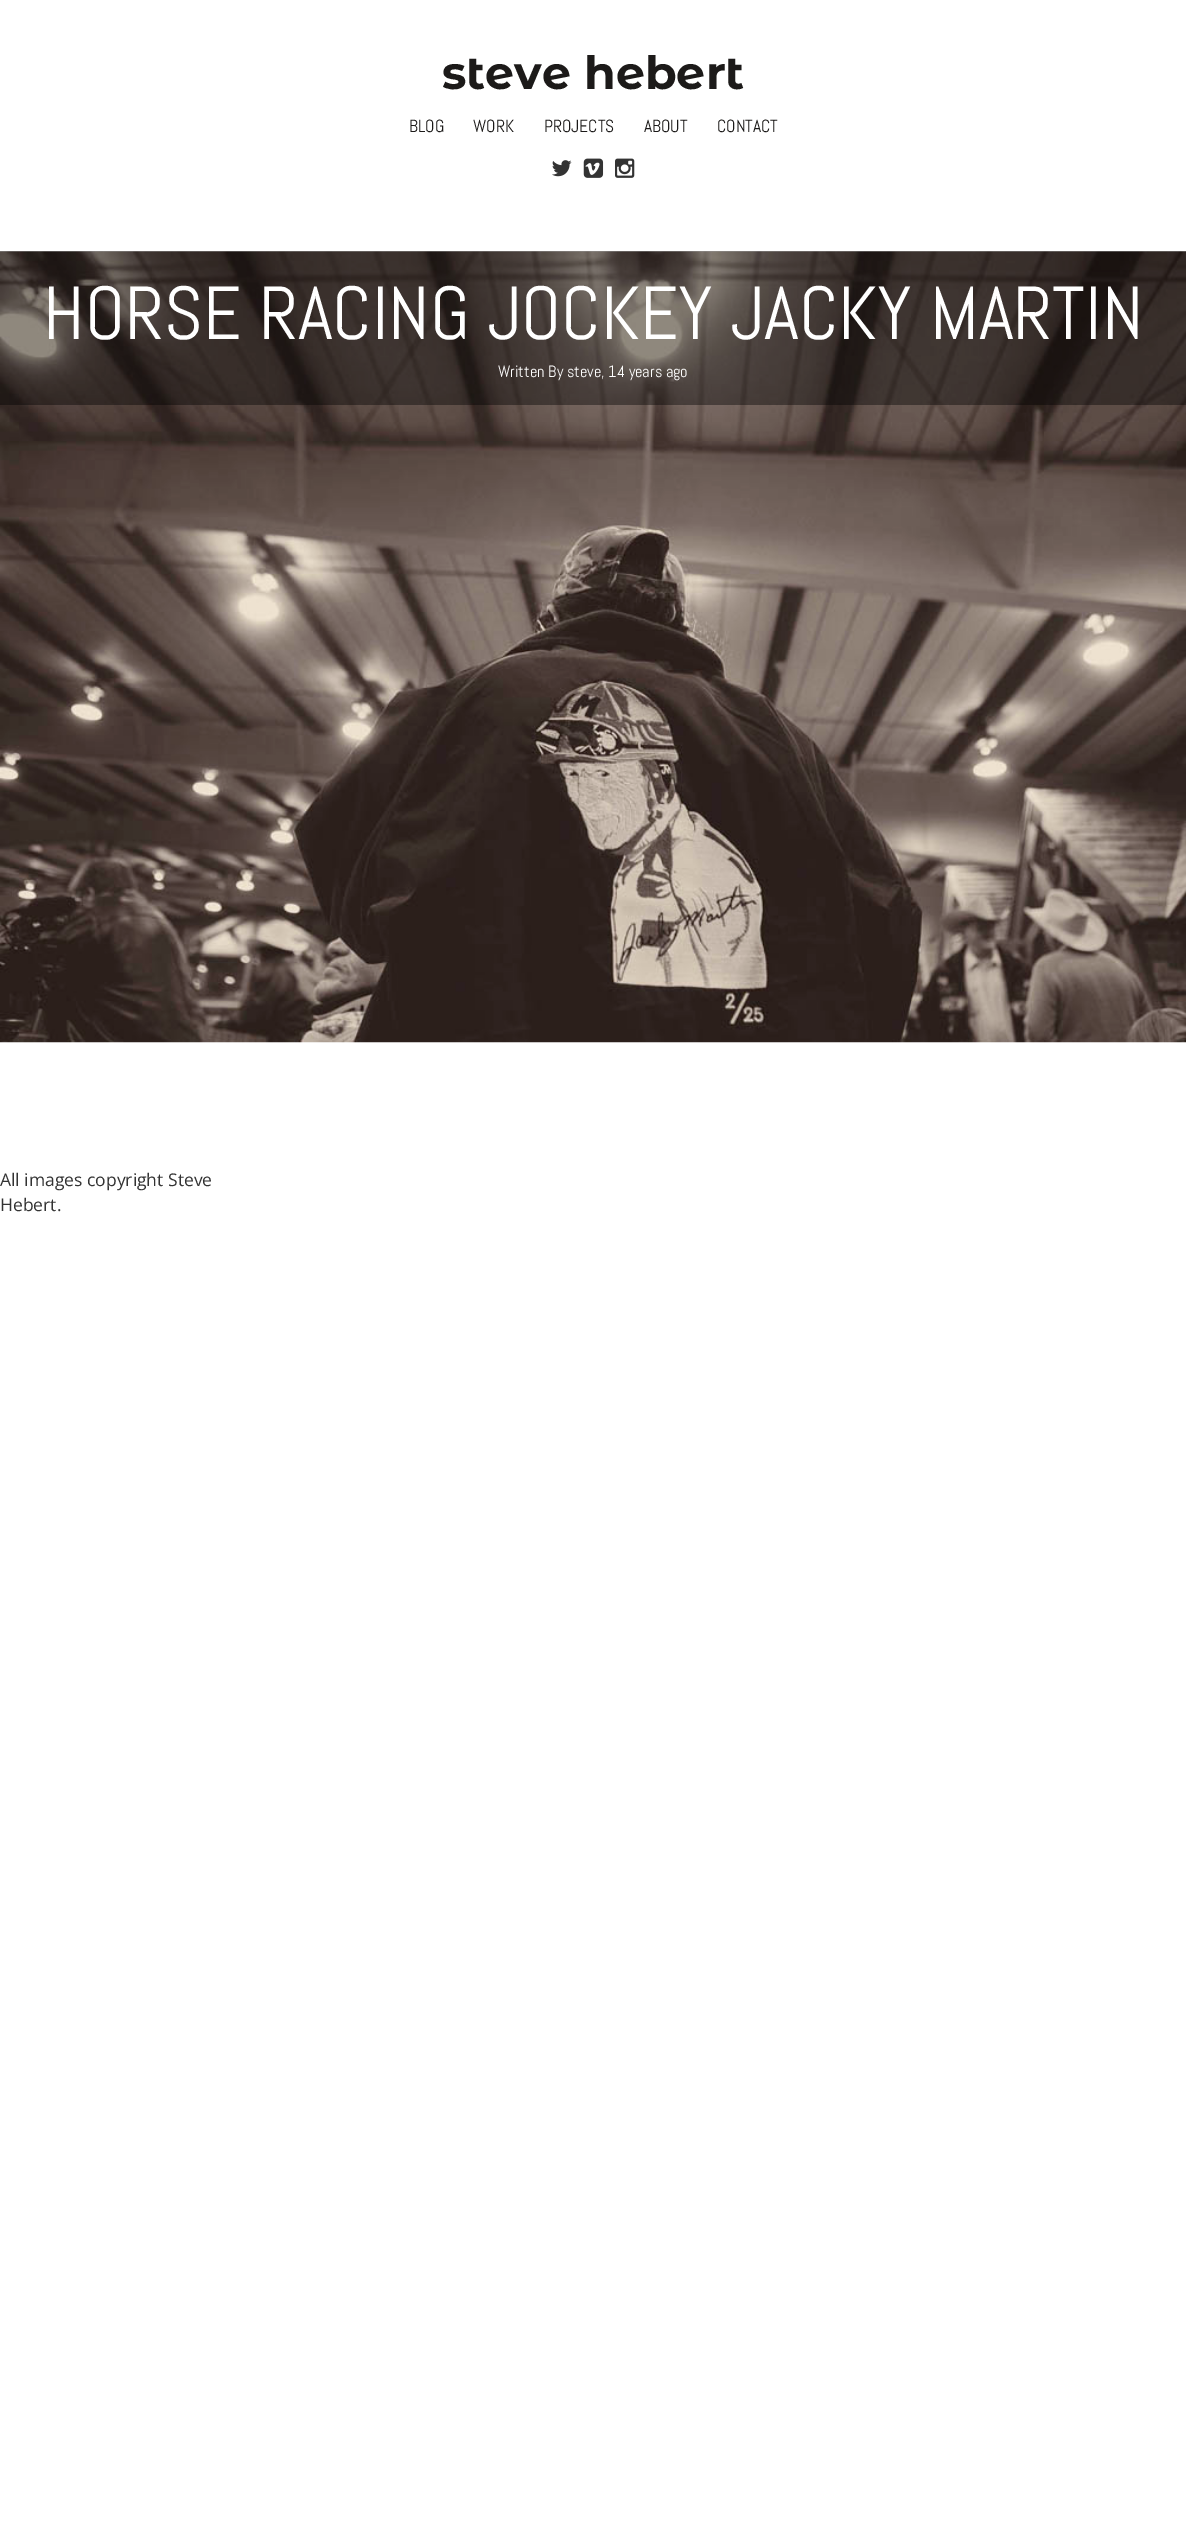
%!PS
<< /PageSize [1186 2541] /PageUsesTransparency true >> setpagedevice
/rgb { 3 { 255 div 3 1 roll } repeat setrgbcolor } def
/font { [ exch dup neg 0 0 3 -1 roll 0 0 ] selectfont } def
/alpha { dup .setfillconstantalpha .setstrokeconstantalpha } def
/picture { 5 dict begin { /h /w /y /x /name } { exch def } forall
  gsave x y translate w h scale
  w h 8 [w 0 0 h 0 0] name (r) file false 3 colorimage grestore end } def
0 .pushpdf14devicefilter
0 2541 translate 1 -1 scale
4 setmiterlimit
255 255 255 rgb
0 0 1186 2541 rectfill
(img/1.rgb) 552 160 20 17 picture
(img/2.rgb) 583 158 21 20 picture
(img/3.rgb) 615 158 20 20 picture
(img/4.rgb) 0 251 1186 792 picture
0.4 alpha
0 0 0 rgb
0 251 1186 154 rectfill
/MontserratAlternates-Bold 46 font
1 alpha
28 26 25 rgb
442 89 moveto (steve hebert) show
/Abel-Regular 17.5 font
[
  [(BLOG) 409 132]
  [(WORK) 473 132]
  [(PROJECTS) 544 132]
  [(ABOUT) 644 132]
  [(CONTACT) 717 132]
] { aload pop moveto show } forall
/Abel-Regular 75 font
255 255 255 rgb
43 339 moveto (HORSE RACING JOCKEY JACKY MARTIN) show
/Abel-Regular 16.25 font
498 377 moveto (Written By steve, 14 years ago) show
/OpenSans-Regular 17.5 font
51 51 51 rgb
0 1186 moveto (All images copyright Steve) show
0 1211 moveto (Hebert.) show
.poppdf14devicefilter showpage
